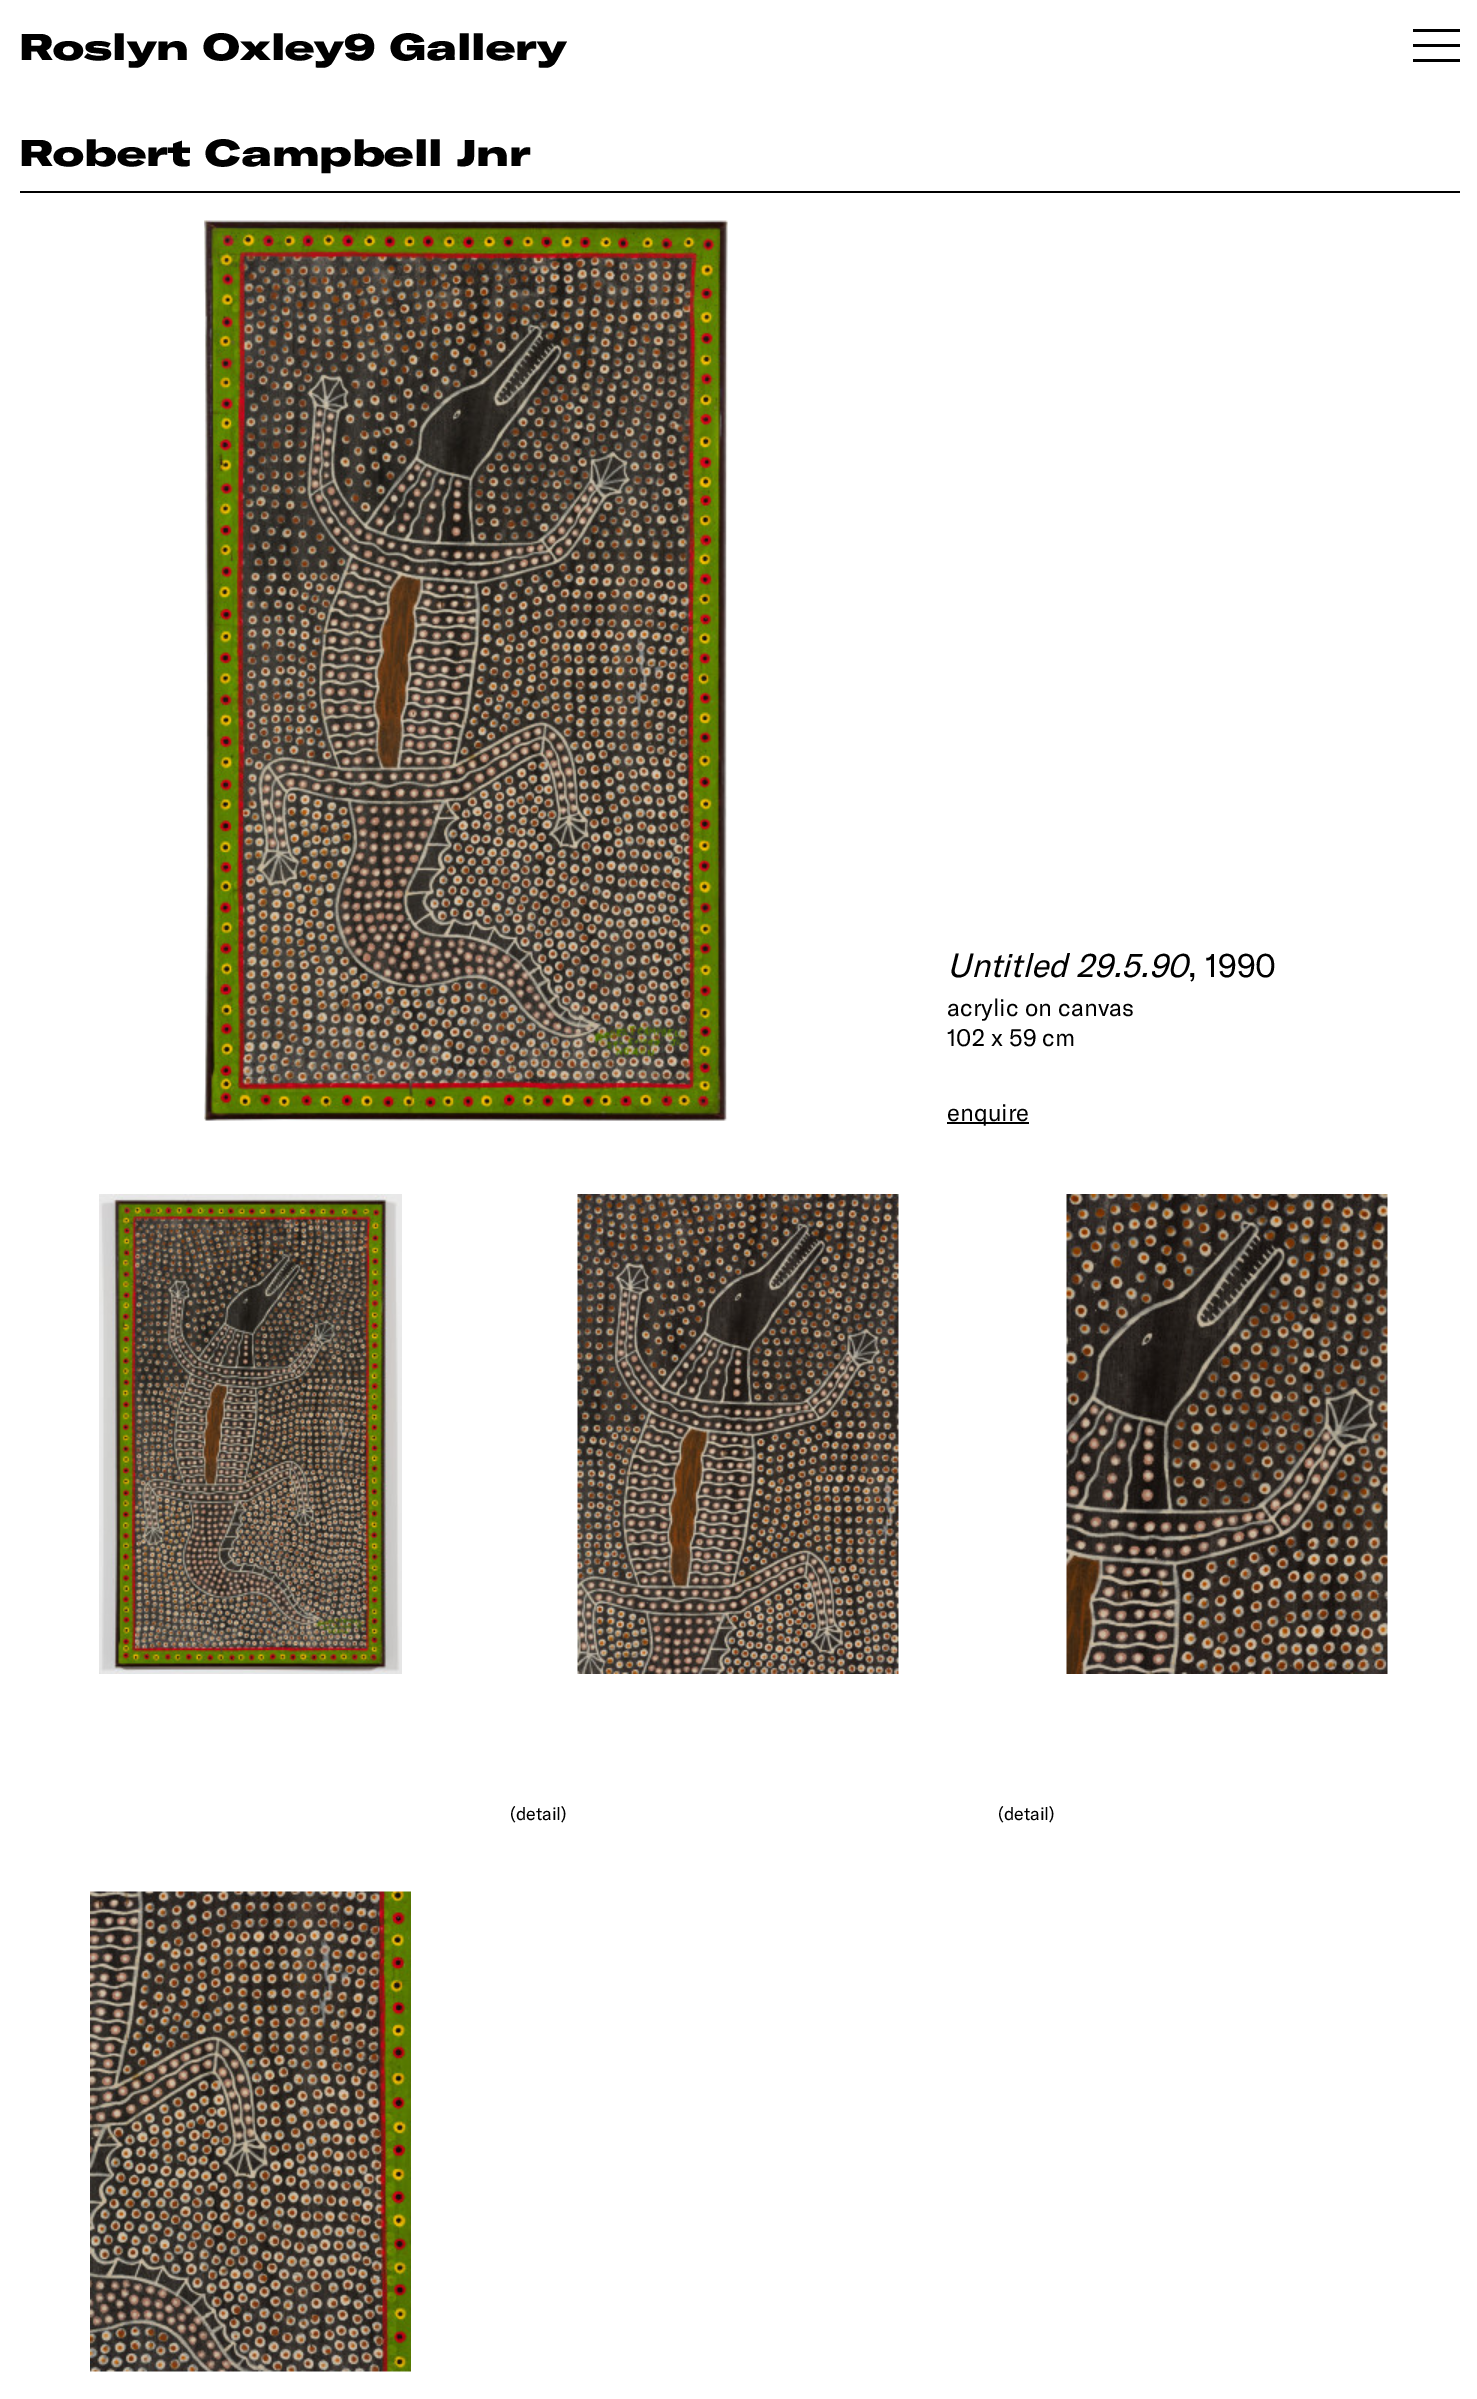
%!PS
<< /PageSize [1477 2399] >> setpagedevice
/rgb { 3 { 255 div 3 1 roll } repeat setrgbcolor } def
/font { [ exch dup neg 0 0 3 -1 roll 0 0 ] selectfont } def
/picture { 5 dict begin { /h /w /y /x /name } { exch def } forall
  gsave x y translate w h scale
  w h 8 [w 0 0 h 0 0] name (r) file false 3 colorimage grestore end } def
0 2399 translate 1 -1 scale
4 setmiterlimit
255 255 255 rgb
0 0 1477 2399 rectfill
[
  [1413 29 47 3 0 0 0]
  [1413 44 47 3 0 0 0]
  [1413 59 47 3 0 0 0]
  [20 191 1440 2 0 0 0]
] { aload pop rgb rectfill } forall
(img/1.rgb) 204 220 524 901 picture
947 1122 82 2 rectfill
(img/2.rgb) 99 1194 303 480 picture
(img/3.rgb) 577 1194 322 480 picture
(img/4.rgb) 1066 1194 322 480 picture
(img/5.rgb) 90 1891 321 481 picture
/GTAmerica-Black 36.75 font
19 60 moveto (Roslyn Oxley9 Gallery) show
19 166 moveto (Robert Campbell Jnr) show
/GTAmerica-Italic 33 font
947 977 moveto (Untitled 29.5.90) show
/GTAmerica-Regular 33 font
1188 977 moveto (, 1990) show
/GTAmerica-Regular 24 font
[
  [(acrylic on canvas) 947 1016]
  [(102 x 59 cm) 947 1046]
  [(enquire) 947 1121]
] { aload pop moveto show } forall
/GTAmerica-Regular 18 font
510 1820 moveto (\(detail\)) show
998 1820 moveto (\(detail\)) show
showpage
